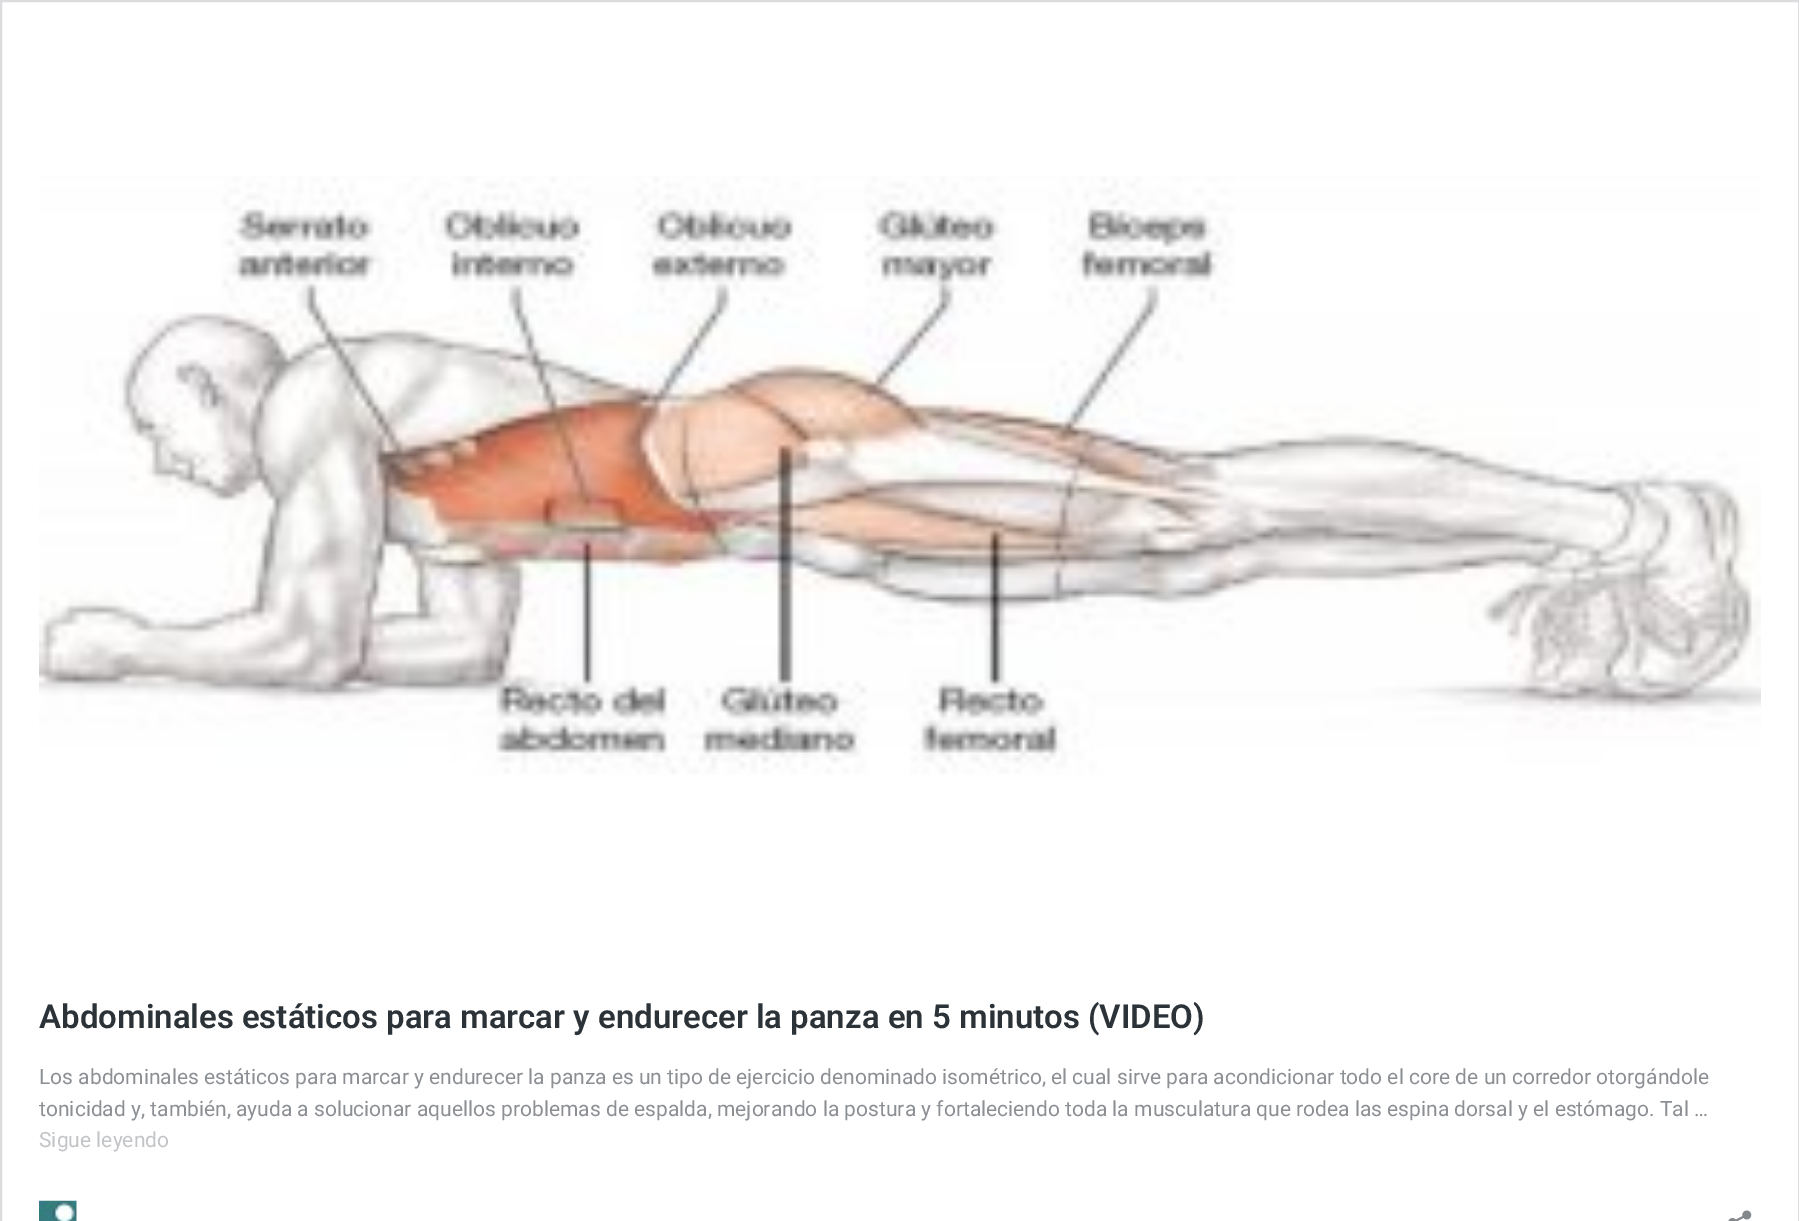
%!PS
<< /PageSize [1799 1221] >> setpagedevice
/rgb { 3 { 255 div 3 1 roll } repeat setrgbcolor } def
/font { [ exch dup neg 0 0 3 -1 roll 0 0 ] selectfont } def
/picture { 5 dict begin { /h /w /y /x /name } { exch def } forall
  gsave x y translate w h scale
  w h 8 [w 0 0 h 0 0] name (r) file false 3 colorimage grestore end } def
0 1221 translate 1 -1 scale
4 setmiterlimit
255 255 255 rgb
0 0 1799 1221 rectfill
220 220 222 rgb
2 setlinewidth
1 1 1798 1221 rectstroke
(img/1.rgb) 39 176 1722 599 picture
(img/2.rgb) 39 1200 38 21 picture
(img/3.rgb) 1728 1210 24 11 picture
/Roboto-SemiBold 33 font
44 51 56 rgb
39 1028 moveto (Abdominales estáticos para marcar y endurecer la panza en 5 minutos \(VIDEO\)) show
/Roboto-Regular 21 font
140 143 148 rgb
39 1084 moveto (Los abdominales estáticos para marcar y endurecer la panza es un tipo de ejercicio denominado isométrico, el cual sirve para acondicionar todo el core de un corredor otorgándole) show
39 1116 moveto (tonicidad y, también, ayuda a solucionar aquellos problemas de espalda, mejorando la postura y fortaleciendo toda la musculatura que rodea las espina dorsal y el estómago. Tal …) show
195 196 199 rgb
39 1147 moveto (Sigue leyendo) show
showpage
